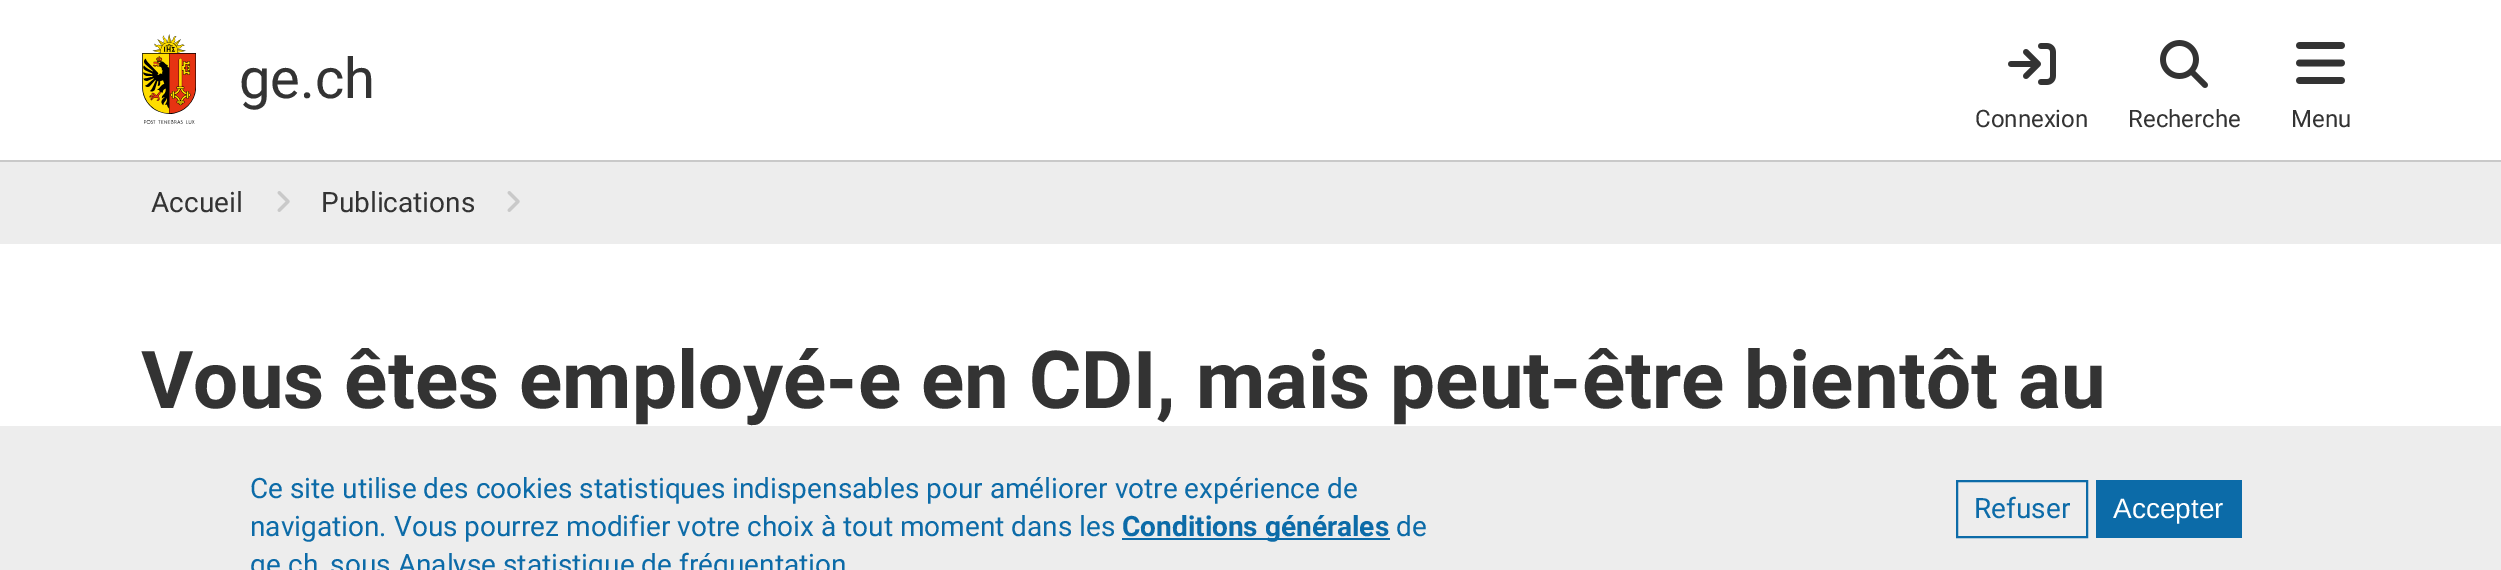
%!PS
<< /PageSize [2501 570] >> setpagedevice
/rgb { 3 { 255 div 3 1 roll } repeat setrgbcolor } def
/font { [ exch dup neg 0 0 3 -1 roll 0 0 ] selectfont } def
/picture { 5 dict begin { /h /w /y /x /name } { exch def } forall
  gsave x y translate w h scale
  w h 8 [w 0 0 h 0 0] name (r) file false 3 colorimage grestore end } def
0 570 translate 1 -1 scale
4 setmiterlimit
255 255 255 rgb
0 0 2501 570 rectfill
201 201 201 rgb
0 160 2501 2 rectfill
(img/1.rgb) 142 34 54 90 picture
(img/2.rgb) 2008 43 48 42 picture
(img/3.rgb) 2160 40 48 48 picture
(img/4.rgb) 2296 42 49 42 picture
237 237 237 rgb
0 162 2501 82 rectfill
(img/5.rgb) 277 191 13 21 picture
(img/5.rgb) 507 191 13 21 picture
0 426 2501 144 rectfill
12 107 168 rgb
1122 538 268 2 rectfill
2 setlinewidth
1957 481 130 56 rectstroke
2096 480 146 58 rectfill
/Roboto-Regular 56 font
51 51 51 rgb
239 98 moveto (ge.ch) show
/Roboto-Regular 24 font
[
  [(Connexion) 1975 127]
  [(Recherche) 2128 127]
  [(Menu) 2291 127]
] { aload pop moveto show } forall
/Roboto-Regular 28 font
151 212 moveto (Accueil) show
321 212 moveto (Publications) show
/Roboto-Bold 80 font
141 408 moveto (Vous êtes employé-e en CDI, mais peut-être bientôt au) show
/Roboto-Regular 28 font
12 107 168 rgb
250 498 moveto (Ce site utilise des cookies statistiques indispensables pour améliorer votre expérience de) show
250 536 moveto (navigation. Vous pourrez modifier votre choix à tout moment dans les) show
/Roboto-Bold 28 font
1122 536 moveto (Conditions générales) show
/Roboto-Regular 28 font
[
  [(de) 1396 536]
  [(ge.ch, sous Analyse statistique de fréquentation) 250 574]
  [(Refuser) 1974 518]
] { aload pop moveto show } forall
/LiberationSans-Regular 28 font
255 255 255 rgb
2113 518 moveto (Accepter) show
showpage
